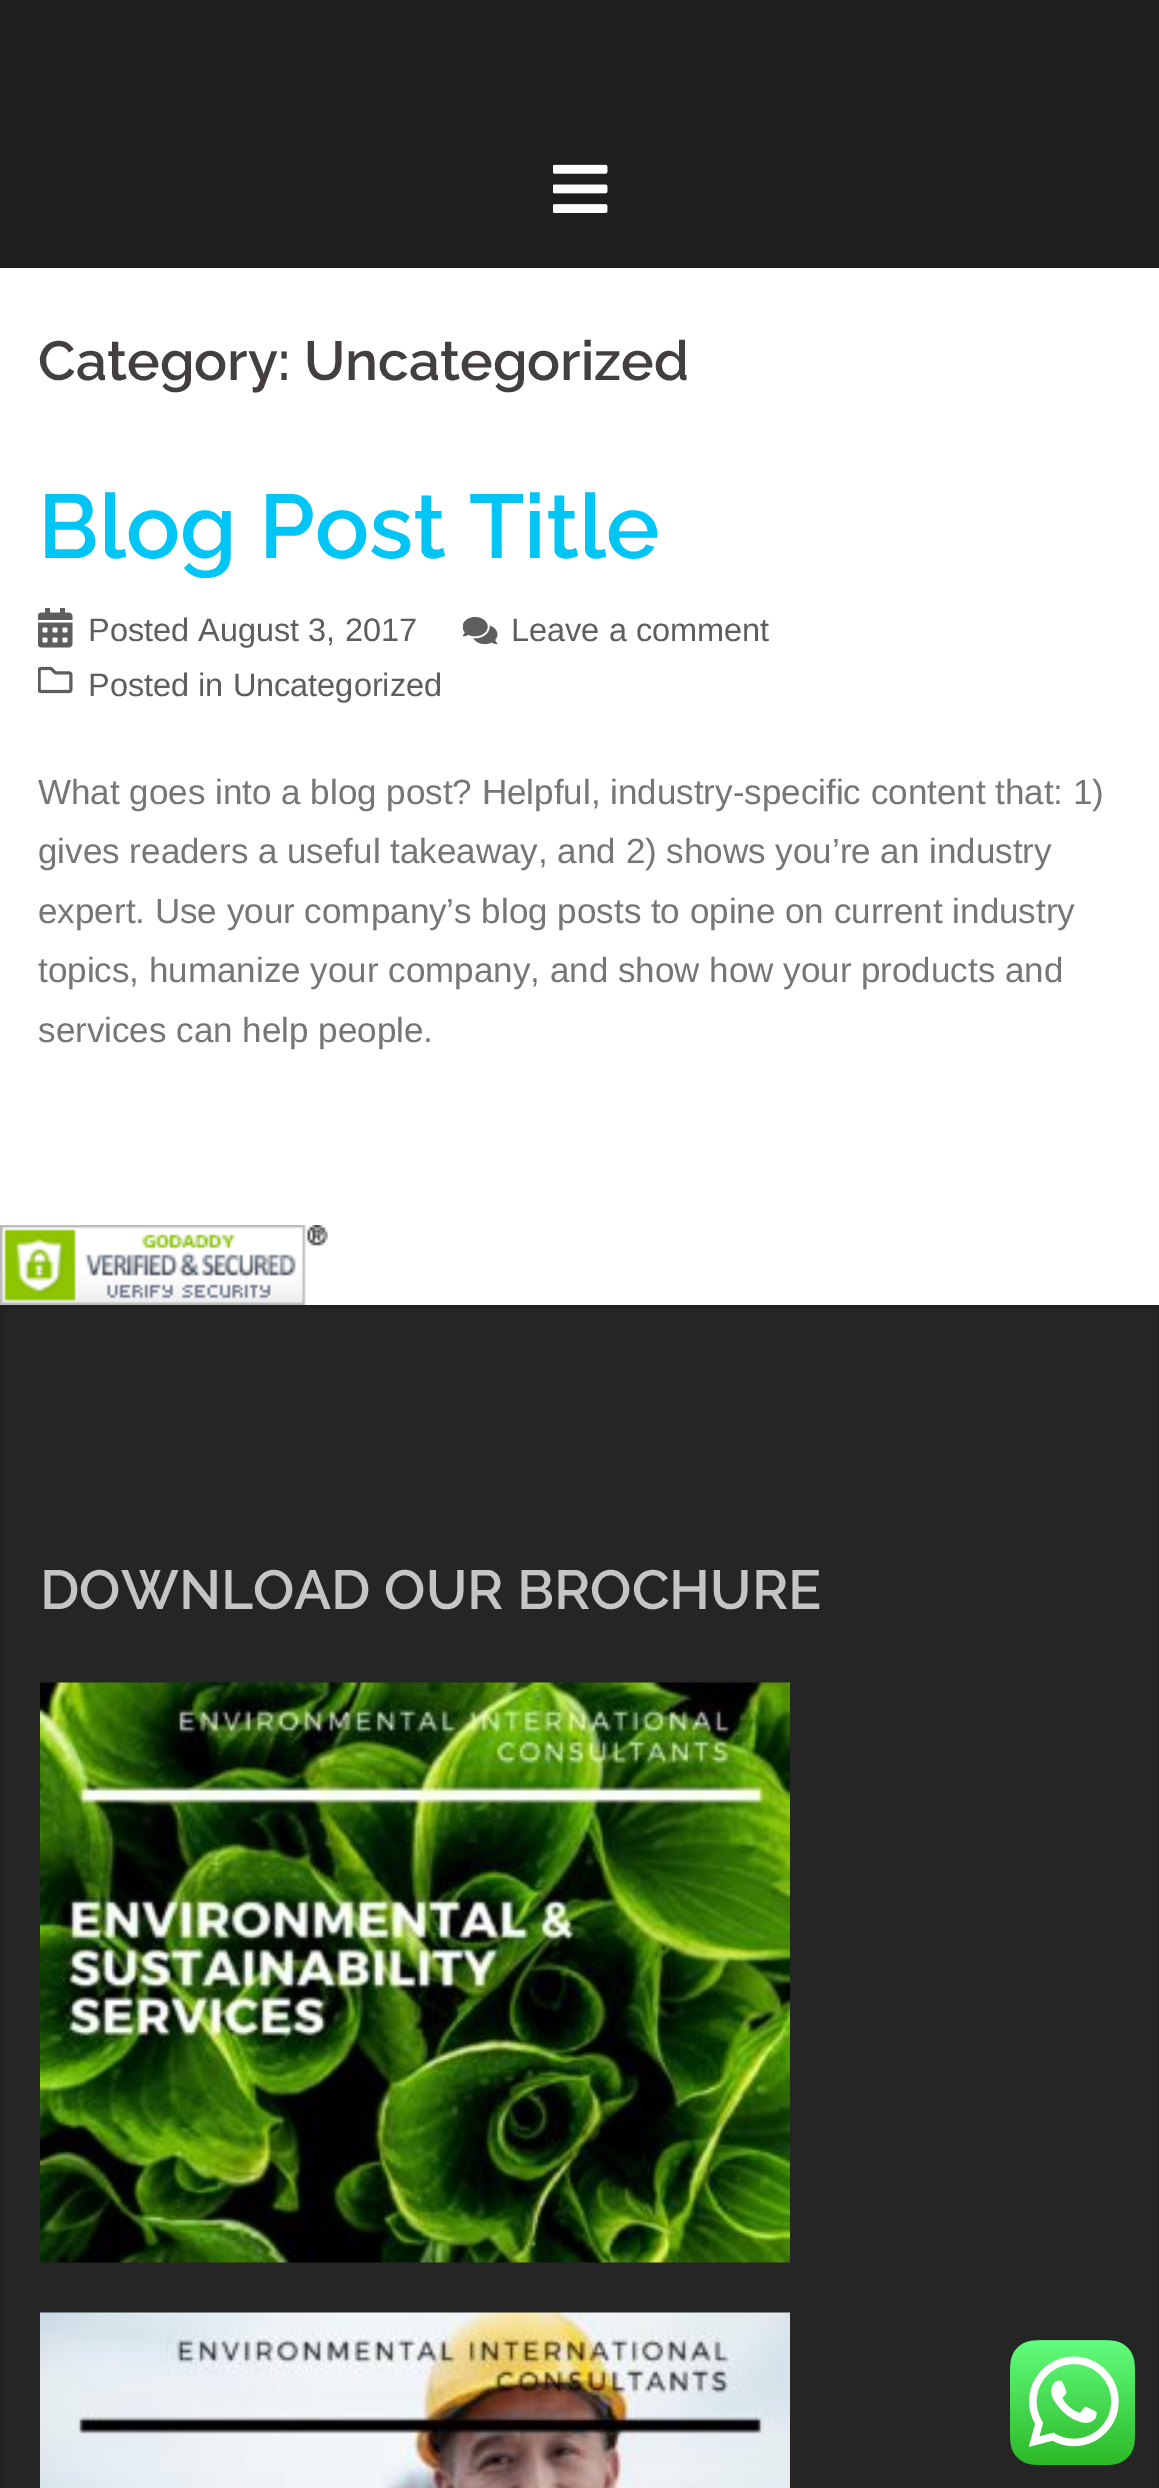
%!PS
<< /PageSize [1159 2488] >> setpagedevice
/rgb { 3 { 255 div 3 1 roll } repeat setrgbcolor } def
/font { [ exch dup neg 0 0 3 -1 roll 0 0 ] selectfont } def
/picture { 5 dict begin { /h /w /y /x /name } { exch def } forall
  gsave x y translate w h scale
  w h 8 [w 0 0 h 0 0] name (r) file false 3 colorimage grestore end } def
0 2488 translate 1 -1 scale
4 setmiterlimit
255 255 255 rgb
0 0 1159 2488 rectfill
30 30 30 rgb
0 0 1159 268 rectfill
(img/1.rgb) 553 164 55 49 picture
(img/2.rgb) 38 608 35 40 picture
(img/3.rgb) 463 617 35 28 picture
(img/4.rgb) 38 666 35 28 picture
(img/5.rgb) 0 1225 328 80 picture
37 37 37 rgb
1.5 1306.5 moveto 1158.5 1306.5 lineto 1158.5 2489.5 lineto 1.5 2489.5 lineto closepath gsave fill grestore
33 33 33 rgb
3 setlinewidth
stroke
(img/6.rgb) 40 1682 750 581 picture
(img/7.rgb) 40 2312 750 176 picture
(img/8.rgb) 1010 2340 125 125 picture
/Raleway-SemiBold 55 font
68 63 63 rgb
38 380 moveto (Category: Uncategorized) show
/Raleway-SemiBold 90 font
0 197 245 rgb
38 558 moveto (Blog Post Title) show
/LiberationSans-Regular 32.5 font
94 94 94 rgb
[
  [(Posted August 3, 2017) 88 641]
  [(Leave a comment) 511 641]
  [(Posted in Uncategorized) 88 696]
] { aload pop moveto show } forall
/LiberationSans-Regular 35 font
118 118 118 rgb
[
  [(What goes into a blog post? Helpful, industry-specific content that: 1\)) 38 804]
  [(gives readers a useful takeaway, and 2\) shows you’re an industry) 38 863]
  [(expert. Use your company’s blog posts to opine on current industry) 38 923]
  [(topics, humanize your company, and show how your products and) 38 982]
  [(services can help people.) 38 1042]
] { aload pop moveto show } forall
/Raleway-SemiBold 55 font
197 197 197 rgb
40 1609 moveto (DOWNLOAD OUR BROCHURE) show
showpage
